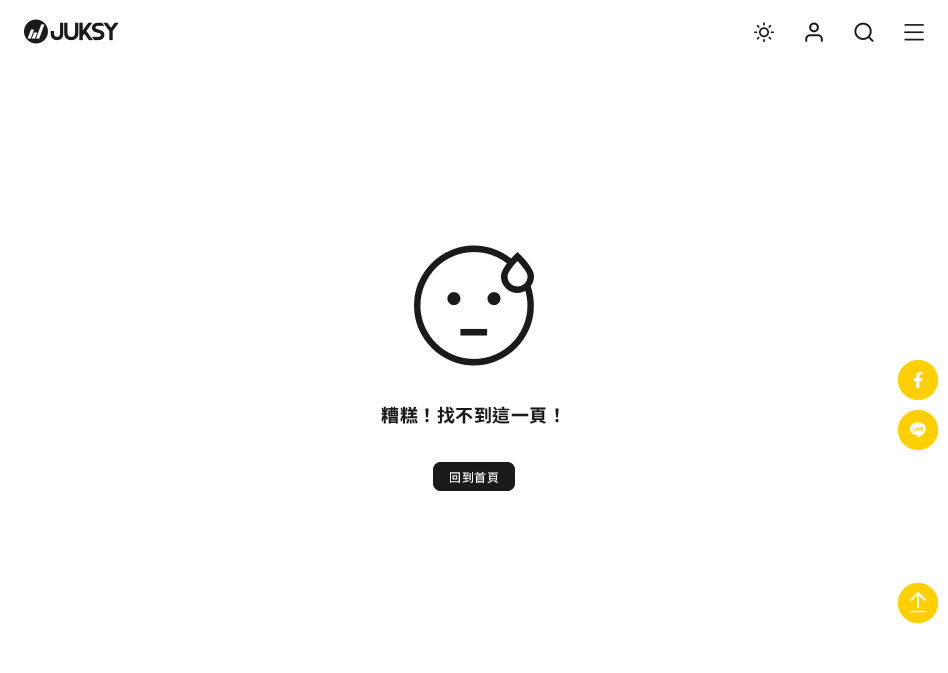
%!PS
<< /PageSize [948 673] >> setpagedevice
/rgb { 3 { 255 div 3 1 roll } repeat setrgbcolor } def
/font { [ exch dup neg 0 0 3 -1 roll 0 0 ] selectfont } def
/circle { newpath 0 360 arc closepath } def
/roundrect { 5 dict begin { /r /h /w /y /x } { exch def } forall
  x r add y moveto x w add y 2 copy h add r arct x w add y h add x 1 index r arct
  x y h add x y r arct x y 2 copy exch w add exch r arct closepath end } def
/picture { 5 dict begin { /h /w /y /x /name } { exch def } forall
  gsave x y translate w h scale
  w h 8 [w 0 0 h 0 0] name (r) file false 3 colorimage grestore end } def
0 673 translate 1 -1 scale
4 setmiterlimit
255 255 255 rgb
0 0 948 673 rectfill
(img/1.rgb) 24 19 95 25 picture
(img/2.rgb) 754 22 20 21 picture
(img/3.rgb) 805 22 18 20 picture
(img/4.rgb) 854 22 20 20 picture
(img/5.rgb) 904 24 20 17 picture
(img/6.rgb) 414 245 120 121 picture
26 26 26 rgb
433 462 82 29 8 roundrect fill
255 207 0 rgb
918 380 20 circle fill
(img/7.rgb) 913 372 10 16 picture
918 430 20 circle fill
(img/8.rgb) 910 422 16 16 picture
(img/9.rgb) 898 583 40 40 picture
/NotoSansTC-Bold 18 font
26 26 26 rgb
381 422 moveto 0.5 0 (糟糕！找不到這一頁！) ashow
/NotoSansTC-Medium 12 font
255 255 255 rgb
449 482 moveto 0.5 0 (回到首頁) ashow
showpage
